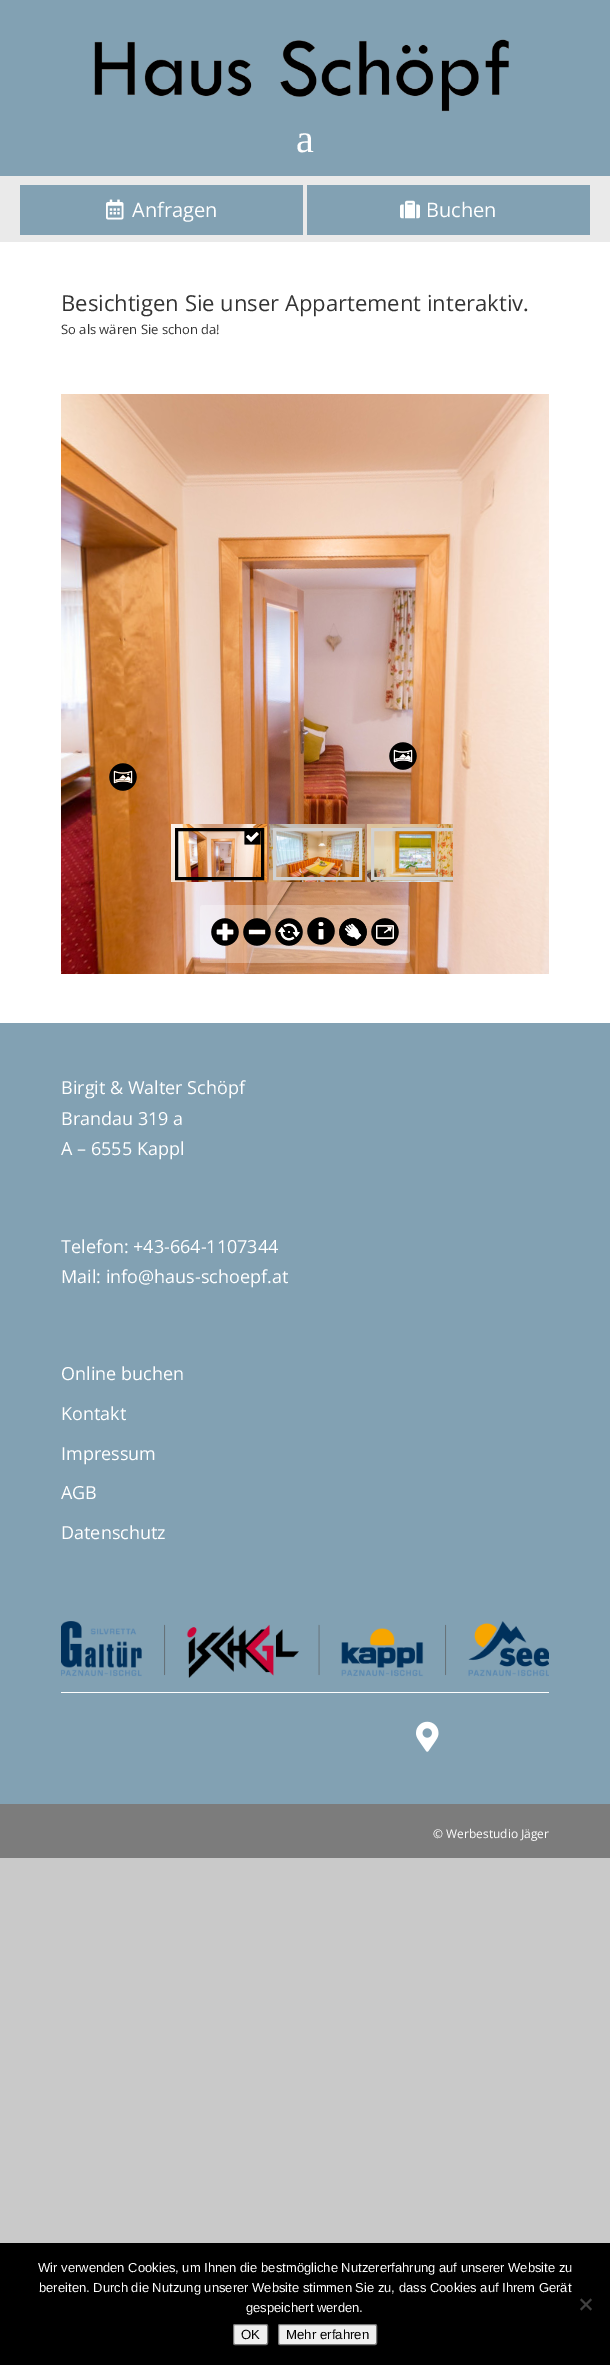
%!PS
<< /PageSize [610 2365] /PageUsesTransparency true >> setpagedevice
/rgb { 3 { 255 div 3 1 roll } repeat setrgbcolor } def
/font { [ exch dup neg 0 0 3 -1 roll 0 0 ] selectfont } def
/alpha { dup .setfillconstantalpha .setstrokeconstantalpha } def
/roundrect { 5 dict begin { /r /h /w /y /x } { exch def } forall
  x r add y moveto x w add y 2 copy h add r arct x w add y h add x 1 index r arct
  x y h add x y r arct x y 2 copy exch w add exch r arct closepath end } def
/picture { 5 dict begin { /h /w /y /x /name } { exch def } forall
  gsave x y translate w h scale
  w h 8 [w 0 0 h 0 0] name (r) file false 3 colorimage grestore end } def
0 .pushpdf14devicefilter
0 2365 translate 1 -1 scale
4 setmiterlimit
201 201 201 rgb
0 0 610 2365 rectfill
130 161 179 rgb
0 0 610 176 rectfill
(img/1.rgb) 94 39 415 73 picture
234 234 234 rgb
0 176 610 66 rectfill
130 161 179 rgb
20 185 283 50 rectfill
(img/2.rgb) 106 199 18 21 picture
307 185 283 50 rectfill
(img/3.rgb) 400 200 20 19 picture
255 255 255 rgb
0 242 610 781 rectfill
(img/4.rgb) 61 394 488 580 picture
(img/5.rgb) 389 742 28 28 picture
(img/6.rgb) 109 763 28 28 picture
(img/7.rgb) 171 824 96 58 picture
(img/8.rgb) 244 831 17 14 picture
0 0 0 rgb
3 setlinewidth
176.5 829.5 86 49 rectstroke
(img/9.rgb) 269 824 96 58 picture
209 209 209 rgb
274.5 829.5 86 49 rectstroke
(img/10.rgb) 367 824 86 58 picture
gsave
365 822 88 60 rectclip
372.5 829.5 86 49 rectstroke
grestore
0.31 alpha
255 255 255 rgb
200 905 210 58 3 roundrect fill
1 alpha
(img/11.rgb) 211 918 28 28 picture
(img/12.rgb) 243 918 28 28 picture
(img/13.rgb) 275 918 28 28 picture
(img/14.rgb) 307 917 28 28 picture
(img/15.rgb) 339 918 28 28 picture
(img/16.rgb) 339 918 28 28 picture
(img/17.rgb) 371 918 28 28 picture
130 161 179 rgb
0 1023 610 781 rectfill
(img/18.rgb) 61 1621 488 57 picture
255 255 255 rgb
61 1692 488 1 rectfill
(img/19.rgb) 416 1721 23 31 picture
124 124 124 rgb
0 1804 610 54 rectfill
0 0 0 rgb
0 2243 610 122 rectfill
64 64 64 rgb
590.5 2298.5 moveto 592 2300 lineto 581.5 2310.5 lineto 580 2309 lineto closepath fill
580 2300 moveto 581.5 2298.5 lineto 592 2309 lineto 590.5 2310.5 lineto closepath fill
239 239 239 rgb
233.5 2324.5 34 20 1.5 roundrect gsave fill grestore
118 118 118 rgb
1 setlinewidth
stroke
239 239 239 rgb
278.5 2324.5 98 20 1.5 roundrect gsave fill grestore
118 118 118 rgb
stroke
/LiberationSerif-Regular 40 font
255 255 255 rgb
296 152 moveto (a) show
/OpenSans-Regular 20 font
132 217 moveto (Anfragen) show
426 217 moveto (Buchen) show
/OpenSans-Regular 22 font
51 51 51 rgb
61 311 moveto (Besichtigen Sie unser Appartement interaktiv.) show
/OpenSans-Regular 13 font
61 334 moveto (So als wären Sie schon da!) show
/OpenSans-Regular 18 font
255 255 255 rgb
[
  [(Birgit & Walter Schöpf) 61 1094]
  [(Brandau 319 a) 61 1125]
  [(A – 6555 Kappl) 61 1155]
  [(Telefon: +43-664-1107344) 61 1253]
  [(Mail: info@haus-schoepf.at) 61 1283]
  [(Online buchen) 61 1380]
  [(Kontakt) 61 1420]
  [(Impressum) 61 1460]
  [(AGB) 61 1499]
  [(Datenschutz) 61 1539]
] { aload pop moveto show } forall
/OpenSans-Regular 12 font
433 1838 moveto (© Werbestudio Jäger) show
/LiberationSans-Regular 13 font
[
  [(Wir verwenden Cookies, um Ihnen die bestmögliche Nutzererfahrung auf unserer Website zu) 38 2272]
  [(bereiten. Durch die Nutzung unserer Website stimmen Sie zu, dass Cookies auf Ihrem Gerät) 39 2292]
  [(gespeichert werden.) 246 2312]
] { aload pop moveto show } forall
/LiberationSans-Regular 13.25 font
0 0 0 rgb
241 2339 moveto (OK) show
286 2339 moveto (Mehr erfahren) show
.poppdf14devicefilter showpage
